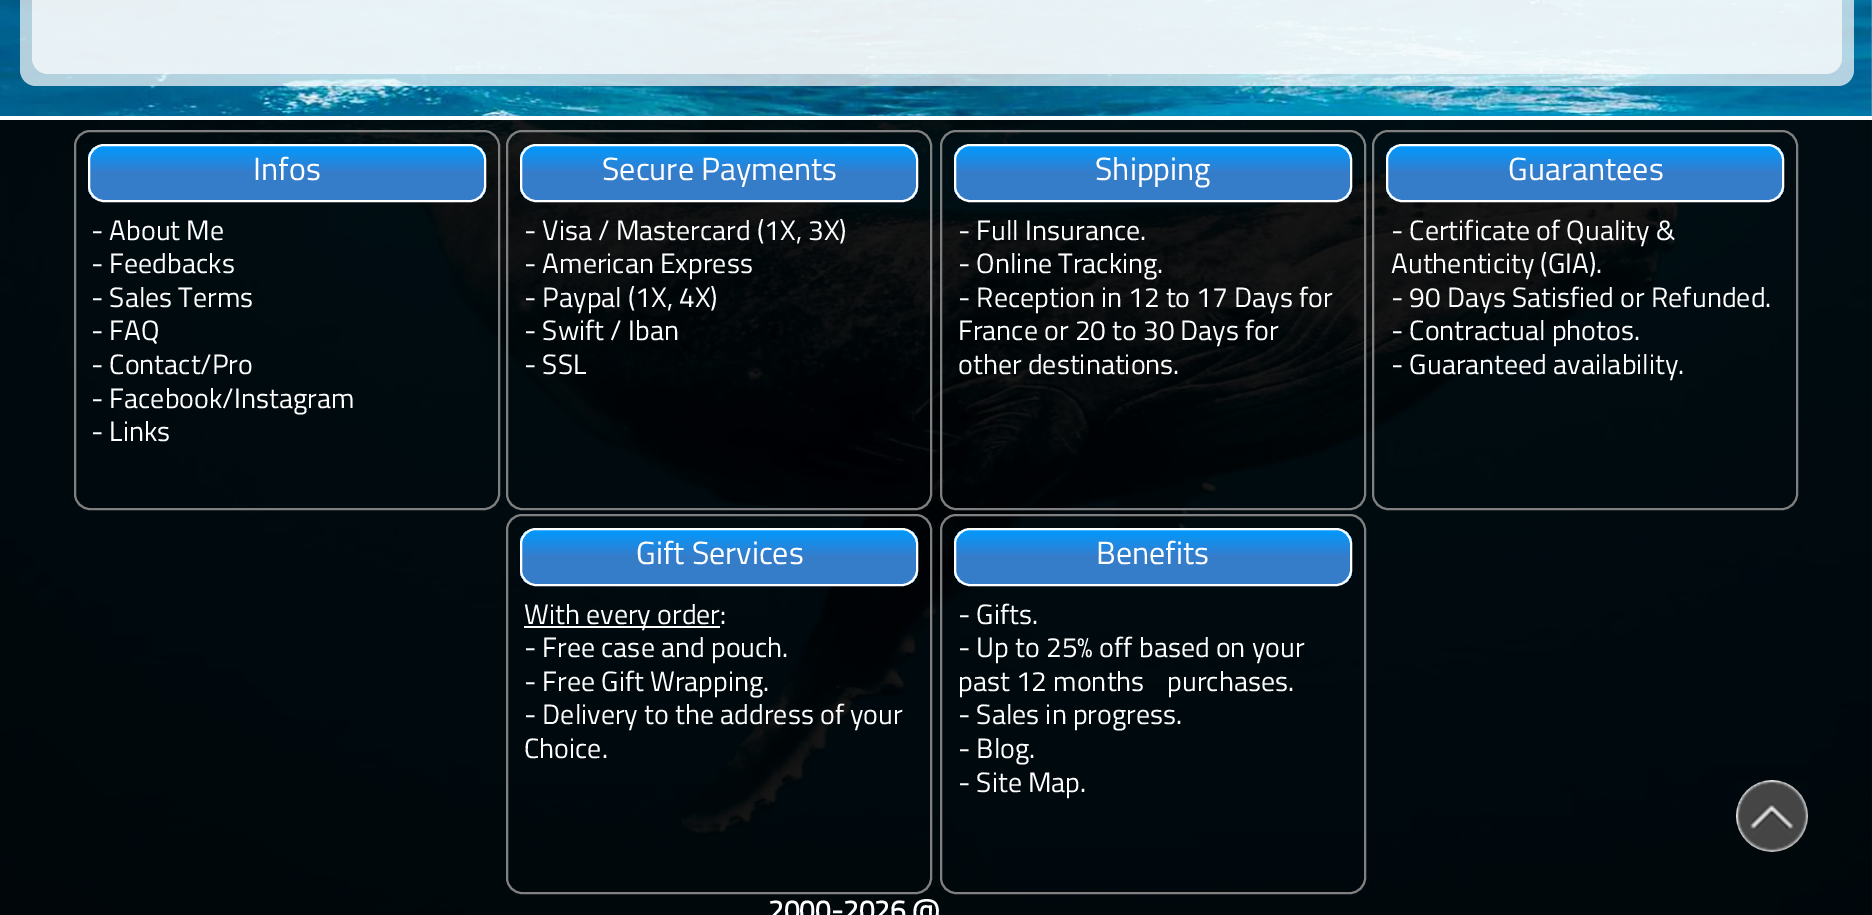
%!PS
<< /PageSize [1872 915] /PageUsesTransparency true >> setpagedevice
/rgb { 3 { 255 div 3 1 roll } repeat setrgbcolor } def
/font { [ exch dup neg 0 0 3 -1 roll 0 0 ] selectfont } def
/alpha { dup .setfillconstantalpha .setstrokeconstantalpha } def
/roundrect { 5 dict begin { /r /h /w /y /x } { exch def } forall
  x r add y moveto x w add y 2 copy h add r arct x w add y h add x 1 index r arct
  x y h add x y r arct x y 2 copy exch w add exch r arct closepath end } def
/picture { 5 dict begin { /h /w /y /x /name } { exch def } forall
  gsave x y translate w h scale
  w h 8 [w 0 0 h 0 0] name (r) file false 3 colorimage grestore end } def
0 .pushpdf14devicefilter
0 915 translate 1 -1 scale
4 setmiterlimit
255 255 255 rgb
0 0 1872 915 rectfill
(img/1.rgb) 0 0 1872 915 picture
0.7 alpha
20 -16 1834 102 16 roundrect fill
32 -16 1810 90 16 roundrect fill
0.9 alpha
0 0 0 rgb
0 120 1872 795 rectfill
1 alpha
255 255 255 rgb
0 116 1872 4 rectfill
128 128 128 rgb
2 setlinewidth
75 131 424 378 15 roundrect stroke
gsave
88 144 398 58 16 roundrect clip newpath
gsave 88 146 moveto 486 146 lineto 486 200 lineto 88 200 lineto closepath clip newpath
<< /ShadingType 2 /ColorSpace /DeviceRGB /Coords [287 146 287 200] /Extend [true true] /Function << /FunctionType 3 /Domain [0 1] /Functions [<< /FunctionType 2 /Domain [0 1] /C0 [0 0.6 1] /C1 [0.212 0.49 0.788] /N 1 >> << /FunctionType 2 /Domain [0 1] /C0 [0.212 0.49 0.788] /C1 [0.212 0.49 0.788] /N 1 >>] /Bounds [0.5] /Encode [0 1 0 1] >> >> shfill grestore
grestore
255 255 255 rgb
89 145 396 56 15 roundrect stroke
128 128 128 rgb
507 131 424 378 15 roundrect stroke
gsave
520 144 398 58 16 roundrect clip newpath
gsave 520 146 moveto 918 146 lineto 918 200 lineto 520 200 lineto closepath clip newpath
<< /ShadingType 2 /ColorSpace /DeviceRGB /Coords [719 146 719 200] /Extend [true true] /Function << /FunctionType 3 /Domain [0 1] /Functions [<< /FunctionType 2 /Domain [0 1] /C0 [0 0.6 1] /C1 [0.212 0.49 0.788] /N 1 >> << /FunctionType 2 /Domain [0 1] /C0 [0.212 0.49 0.788] /C1 [0.212 0.49 0.788] /N 1 >>] /Bounds [0.5] /Encode [0 1 0 1] >> >> shfill grestore
grestore
255 255 255 rgb
521 145 396 56 15 roundrect stroke
128 128 128 rgb
941 131 424 378 15 roundrect stroke
gsave
954 144 398 58 16 roundrect clip newpath
gsave 954 146 moveto 1352 146 lineto 1352 200 lineto 954 200 lineto closepath clip newpath
<< /ShadingType 2 /ColorSpace /DeviceRGB /Coords [1153 146 1153 200] /Extend [true true] /Function << /FunctionType 3 /Domain [0 1] /Functions [<< /FunctionType 2 /Domain [0 1] /C0 [0 0.6 1] /C1 [0.212 0.49 0.788] /N 1 >> << /FunctionType 2 /Domain [0 1] /C0 [0.212 0.49 0.788] /C1 [0.212 0.49 0.788] /N 1 >>] /Bounds [0.5] /Encode [0 1 0 1] >> >> shfill grestore
grestore
255 255 255 rgb
955 145 396 56 15 roundrect stroke
128 128 128 rgb
1373 131 424 378 15 roundrect stroke
gsave
1386 144 398 58 16 roundrect clip newpath
gsave 1386 146 moveto 1784 146 lineto 1784 200 lineto 1386 200 lineto closepath clip newpath
<< /ShadingType 2 /ColorSpace /DeviceRGB /Coords [1585 146 1585 200] /Extend [true true] /Function << /FunctionType 3 /Domain [0 1] /Functions [<< /FunctionType 2 /Domain [0 1] /C0 [0 0.6 1] /C1 [0.212 0.49 0.788] /N 1 >> << /FunctionType 2 /Domain [0 1] /C0 [0.212 0.49 0.788] /C1 [0.212 0.49 0.788] /N 1 >>] /Bounds [0.5] /Encode [0 1 0 1] >> >> shfill grestore
grestore
255 255 255 rgb
1387 145 396 56 15 roundrect stroke
128 128 128 rgb
507 515 424 378 15 roundrect stroke
gsave
520 528 398 58 16 roundrect clip newpath
gsave 520 530 moveto 918 530 lineto 918 584 lineto 520 584 lineto closepath clip newpath
<< /ShadingType 2 /ColorSpace /DeviceRGB /Coords [719 530 719 584] /Extend [true true] /Function << /FunctionType 3 /Domain [0 1] /Functions [<< /FunctionType 2 /Domain [0 1] /C0 [0 0.6 1] /C1 [0.212 0.49 0.788] /N 1 >> << /FunctionType 2 /Domain [0 1] /C0 [0.212 0.49 0.788] /C1 [0.212 0.49 0.788] /N 1 >>] /Bounds [0.5] /Encode [0 1 0 1] >> >> shfill grestore
grestore
255 255 255 rgb
521 529 396 56 15 roundrect stroke
524 626 196 2 rectfill
128 128 128 rgb
941 515 424 378 15 roundrect stroke
gsave
954 528 398 58 16 roundrect clip newpath
gsave 954 530 moveto 1352 530 lineto 1352 584 lineto 954 584 lineto closepath clip newpath
<< /ShadingType 2 /ColorSpace /DeviceRGB /Coords [1153 530 1153 584] /Extend [true true] /Function << /FunctionType 3 /Domain [0 1] /Functions [<< /FunctionType 2 /Domain [0 1] /C0 [0 0.6 1] /C1 [0.212 0.49 0.788] /N 1 >> << /FunctionType 2 /Domain [0 1] /C0 [0.212 0.49 0.788] /C1 [0.212 0.49 0.788] /N 1 >>] /Bounds [0.5] /Encode [0 1 0 1] >> >> shfill grestore
grestore
255 255 255 rgb
955 529 396 56 15 roundrect stroke
(img/2.rgb) 1736 780 72 72 picture
/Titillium-Regular 32 font
253 180 moveto (Infos) show
/Titillium-Regular 28 font
[
  [(- About Me) 91 240]
  [(- Feedbacks) 91 273]
  [(- Sales Terms) 91 307]
  [(- FAQ) 91 340]
  [(- Contact/Pro) 91 374]
  [(- Facebook/Instagram) 91 408]
  [(- Links) 91 441]
] { aload pop moveto show } forall
/Titillium-Regular 32 font
602 180 moveto (Secure Payments) show
/Titillium-Regular 28 font
[
  [(- Visa / Mastercard \(1X, 3X\)) 524 240]
  [(- American Express) 524 273]
  [(- Paypal \(1X, 4X\)) 524 307]
  [(- Swift / Iban) 524 340]
  [(- SSL) 524 374]
] { aload pop moveto show } forall
/Titillium-Regular 32 font
1095 180 moveto (Shipping) show
/Titillium-Regular 28 font
[
  [(- Full Insurance.) 958 240]
  [(- Online Tracking.) 958 273]
  [(- Reception in 12 to 17 Days for) 958 307]
  [(France or 20 to 30 Days for) 958 340]
  [(other destinations.) 958 374]
] { aload pop moveto show } forall
/Titillium-Regular 32 font
1508 180 moveto (Guarantees) show
/Titillium-Regular 28 font
[
  [(- Certificate of Quality &) 1391 240]
  [(Authenticity \(GIA\).) 1391 273]
  [(- 90 Days Satisfied or Refunded.) 1391 307]
  [(- Contractual photos.) 1391 340]
  [(- Guaranteed availability.) 1391 374]
] { aload pop moveto show } forall
/Titillium-Regular 32 font
636 564 moveto (Gift Services) show
/Titillium-Regular 28 font
[
  [(With every order:) 524 624]
  [(- Free case and pouch.) 524 657]
  [(- Free Gift Wrapping.) 524 691]
  [(- Delivery to the address of your) 524 724]
  [(Choice.) 524 758]
] { aload pop moveto show } forall
/Titillium-Regular 32 font
1096 564 moveto (Benefits) show
/Titillium-Regular 28 font
[
  [(- Gifts.) 958 624]
  [(- Up to 25% off based on your) 958 657]
  [(past 12 months) 958 691]
  [(purchases.) 1167 691]
  [(- Sales in progress.) 958 724]
  [(- Blog.) 958 758]
  [(- Site Map.) 958 792]
] { aload pop moveto show } forall
/Titillium-Bold 28 font
768 920 moveto (2000-2026 @) show
.poppdf14devicefilter showpage
